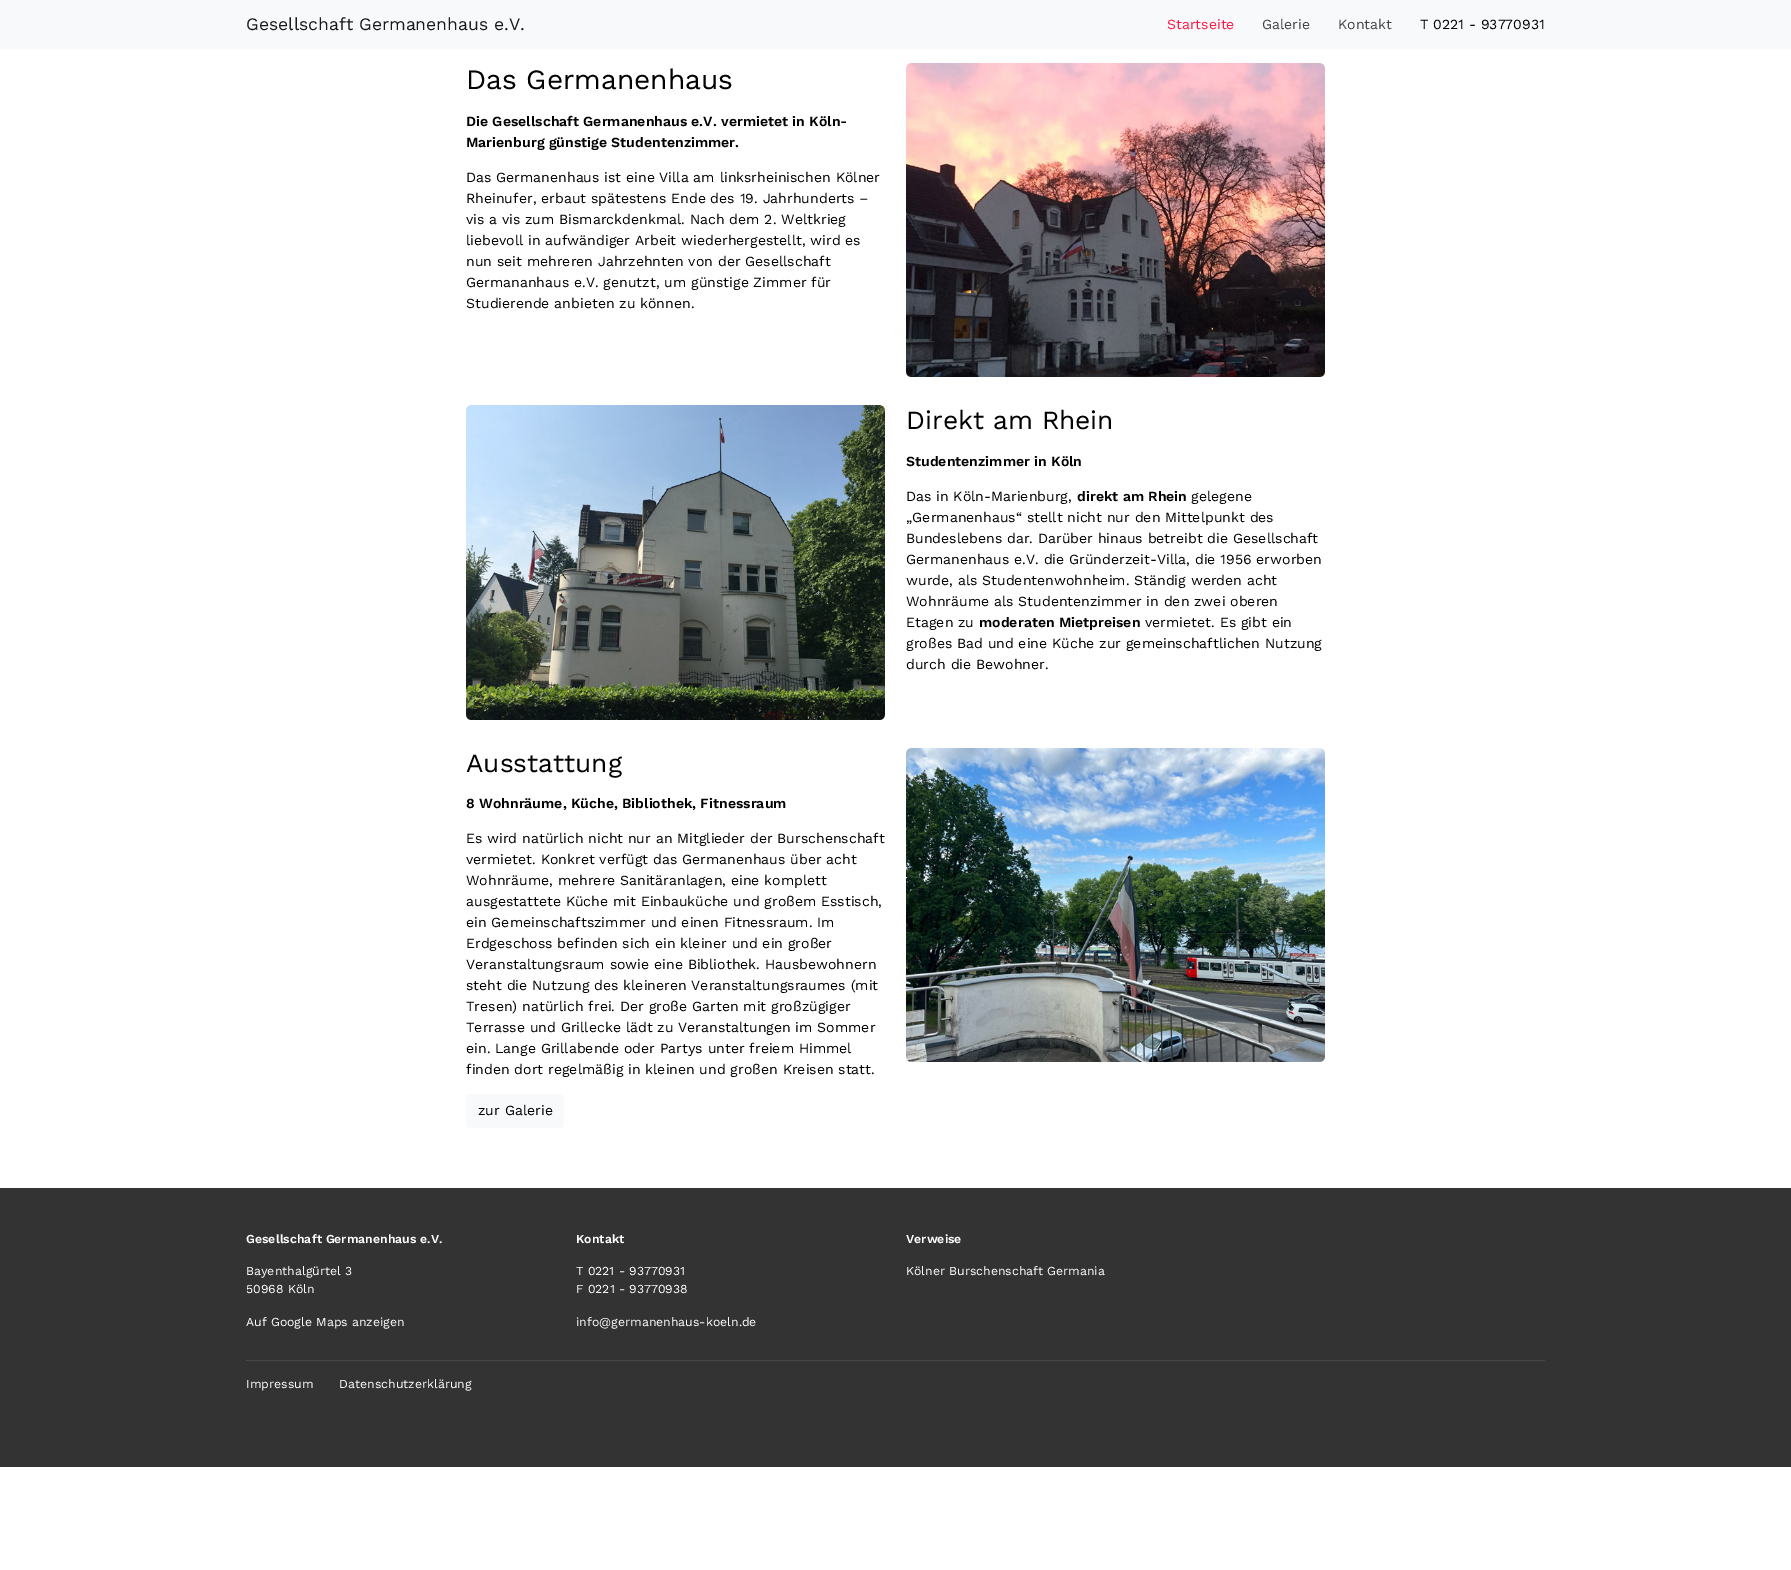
%!PS
<< /PageSize [1791 1570] >> setpagedevice
/rgb { 3 { 255 div 3 1 roll } repeat setrgbcolor } def
/font { [ exch dup neg 0 0 3 -1 roll 0 0 ] selectfont } def
/roundrect { 5 dict begin { /r /h /w /y /x } { exch def } forall
  x r add y moveto x w add y 2 copy h add r arct x w add y h add x 1 index r arct
  x y h add x y r arct x y 2 copy exch w add exch r arct closepath end } def
/picture { 5 dict begin { /h /w /y /x /name } { exch def } forall
  gsave x y translate w h scale
  w h 8 [w 0 0 h 0 0] name (r) file false 3 colorimage grestore end } def
0 1570 translate 1 -1 scale
4 setmiterlimit
255 255 255 rgb
0 0 1791 1570 rectfill
248 249 250 rgb
0 0 1791 49 rectfill
(img/1.rgb) 906 63 419 314 picture
(img/2.rgb) 466 405 419 315 picture
466 1094 98 34 5 roundrect fill
(img/3.rgb) 906 748 419 314 picture
[
  [0 1188 1791 279 51 51 51]
  [246 1359 1299 1 48 49 49]
  [246 1360 1299 1 71 71 71]
] { aload pop rgb rectfill } forall
/WorkSans-Regular 17.5 font
25 25 25 rgb
246 30 moveto (Gesellschaft Germanenhaus e.V.) show
/WorkSans-Regular 14 font
255 25 73 rgb
1167 29 moveto (Startseite) show
68 68 68 rgb
1262 29 moveto (Galerie) show
1338 29 moveto (Kontakt) show
0 0 0 rgb
1420 29 moveto (T 0221 - 93770931) show
/WorkSans-Regular 28 font
466 89 moveto (Das Germanenhaus) show
/WorkSans-SemiBold 14 font
466 126 moveto (Die Gesellschaft Germanenhaus e.V. vermietet in Köln-) show
466 147 moveto (Marienburg günstige Studentenzimmer.) show
/WorkSans-Regular 14 font
[
  [(Das Germanenhaus ist eine Villa am linksrheinischen Kölner) 466 182]
  [(Rheinufer, erbaut spätestens Ende des 19. Jahrhunderts –) 466 203]
  [(vis a vis zum Bismarckdenkmal. Nach dem 2. Weltkrieg) 466 224]
  [(liebevoll in aufwändiger Arbeit wiederhergestellt, wird es) 466 245]
  [(nun seit mehreren Jahrzehnten von der Gesellschaft) 466 266]
  [(Germananhaus e.V. genutzt, um günstige Zimmer für) 466 287]
  [(Studierende anbieten zu können.) 466 308]
] { aload pop moveto show } forall
/WorkSans-Regular 26.25 font
906 429 moveto (Direkt am Rhein) show
/WorkSans-SemiBold 14 font
906 466 moveto (Studentenzimmer in Köln) show
/WorkSans-Regular 14 font
906 501 moveto (Das in Köln-Marienburg,) show
/WorkSans-SemiBold 14 font
1077 501 moveto (direkt am Rhein) show
/WorkSans-Regular 14 font
[
  [(gelegene) 1191 501]
  [(„Germanenhaus“ stellt nicht nur den Mittelpunkt des) 906 522]
  [(Bundeslebens dar. Darüber hinaus betreibt die Gesellschaft) 906 543]
  [(Germanenhaus e.V. die Gründerzeit-Villa, die 1956 erworben) 906 564]
  [(wurde, als Studentenwohnheim. Ständig werden acht) 906 585]
  [(Wohnräume als Studentenzimmer in den zwei oberen) 906 606]
  [(Etagen zu) 906 627]
] { aload pop moveto show } forall
/WorkSans-SemiBold 14 font
979 627 moveto (moderaten Mietpreisen) show
/WorkSans-Regular 14 font
[
  [(vermietet. Es gibt ein) 1145 627]
  [(großes Bad und eine Küche zur gemeinschaftlichen Nutzung) 906 648]
  [(durch die Bewohner.) 906 669]
] { aload pop moveto show } forall
/WorkSans-Regular 26.25 font
466 772 moveto (Ausstattung) show
/WorkSans-SemiBold 14 font
466 808 moveto (8 Wohnräume, Küche, Bibliothek, Fitnessraum) show
/WorkSans-Regular 14 font
[
  [(Es wird natürlich nicht nur an Mitglieder der Burschenschaft) 466 843]
  [(vermietet. Konkret verfügt das Germanenhaus über acht) 466 864]
  [(Wohnräume, mehrere Sanitäranlagen, eine komplett) 466 885]
  [(ausgestattete Küche mit Einbauküche und großem Esstisch,) 466 906]
  [(ein Gemeinschaftszimmer und einen Fitnessraum. Im) 466 927]
  [(Erdgeschoss befinden sich ein kleiner und ein großer) 466 948]
  [(Veranstaltungsraum sowie eine Bibliothek. Hausbewohnern) 466 969]
  [(steht die Nutzung des kleineren Veranstaltungsraumes \(mit) 466 990]
  [(Tresen\) natürlich frei. Der große Garten mit großzügiger) 466 1011]
  [(Terrasse und Grillecke lädt zu Veranstaltungen im Sommer) 466 1032]
  [(ein. Lange Grillabende oder Partys unter freiem Himmel) 466 1053]
  [(finden dort regelmäßig in kleinen und großen Kreisen statt.) 466 1074]
  [(zur Galerie) 478 1115]
] { aload pop moveto show } forall
/WorkSans-SemiBold 12.25 font
255 255 255 rgb
246 1243 moveto (Gesellschaft Germanenhaus e.V.) show
/WorkSans-Regular 12.25 font
[
  [(Bayenthalgürtel 3) 246 1275]
  [(50968 Köln) 246 1293]
  [(Auf Google Maps anzeigen) 246 1326]
] { aload pop moveto show } forall
/WorkSans-SemiBold 12.25 font
576 1243 moveto (Kontakt) show
/WorkSans-Regular 12.25 font
[
  [(T 0221 - 93770931) 576 1275]
  [(F 0221 - 93770938) 576 1293]
  [(info@germanenhaus-koeln.de) 576 1326]
] { aload pop moveto show } forall
/WorkSans-SemiBold 12.25 font
906 1243 moveto (Verweise) show
/WorkSans-Regular 12.25 font
[
  [(Kölner Burschenschaft Germania) 906 1275]
  [(Impressum) 246 1388]
  [(Datenschutzerklärung) 339 1388]
] { aload pop moveto show } forall
showpage
